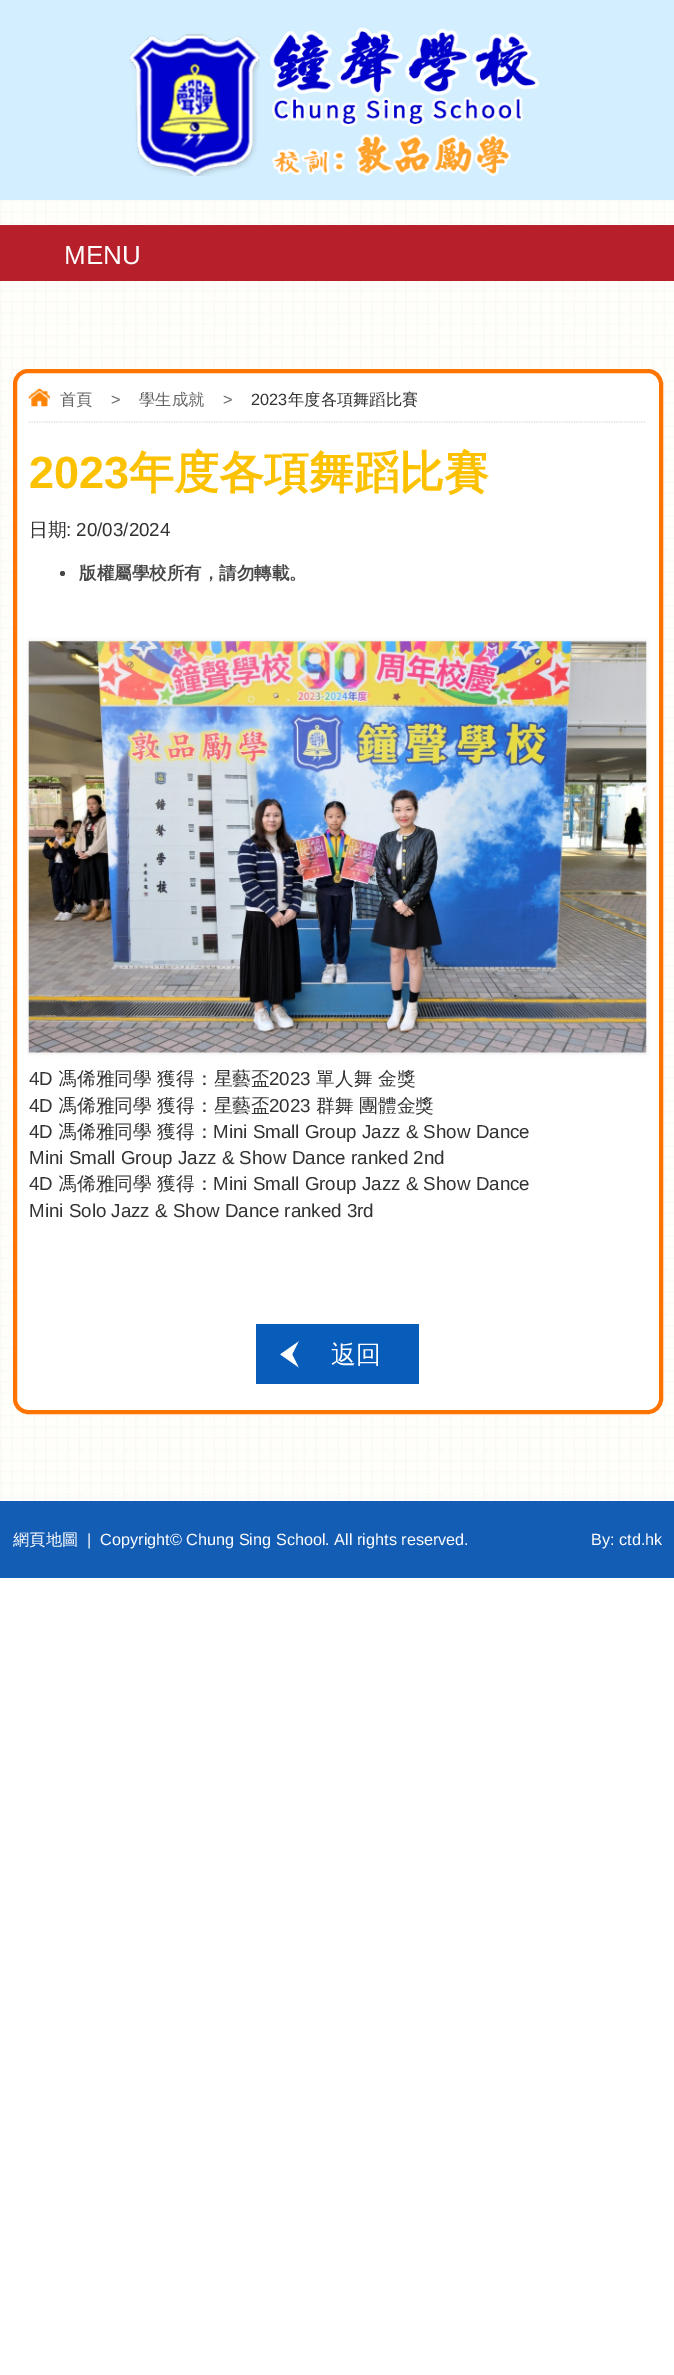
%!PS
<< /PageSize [674 2375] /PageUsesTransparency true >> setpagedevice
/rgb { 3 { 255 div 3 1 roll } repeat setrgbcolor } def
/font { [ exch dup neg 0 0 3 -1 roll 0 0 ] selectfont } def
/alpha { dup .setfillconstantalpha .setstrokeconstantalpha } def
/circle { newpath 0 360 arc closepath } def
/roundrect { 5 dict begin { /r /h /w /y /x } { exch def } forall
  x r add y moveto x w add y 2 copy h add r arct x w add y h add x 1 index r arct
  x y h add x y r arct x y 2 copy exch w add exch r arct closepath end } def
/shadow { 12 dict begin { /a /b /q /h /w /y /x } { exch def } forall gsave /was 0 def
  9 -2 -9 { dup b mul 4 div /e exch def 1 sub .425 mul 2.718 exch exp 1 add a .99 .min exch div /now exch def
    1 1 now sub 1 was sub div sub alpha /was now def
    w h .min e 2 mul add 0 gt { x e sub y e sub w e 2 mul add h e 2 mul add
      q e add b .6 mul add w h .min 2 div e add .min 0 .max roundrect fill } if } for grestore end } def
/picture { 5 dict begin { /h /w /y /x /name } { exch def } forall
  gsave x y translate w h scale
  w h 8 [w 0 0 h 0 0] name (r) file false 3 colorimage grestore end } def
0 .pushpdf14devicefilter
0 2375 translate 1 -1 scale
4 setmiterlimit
255 255 255 rgb
0 0 674 2375 rectfill
210 238 255 rgb
0 0 674 200 rectfill
(img/1.rgb) 129 27 411 149 picture
(img/2.rgb) 0 200 674 1301 picture
183 31 43 rgb
0 225 674 56 rectfill
255 255 255 rgb
15 371 646 1041 13 roundrect gsave fill grestore
255 116 0 rgb
4 setlinewidth
stroke
221 221 221 rgb
1.2 setlinewidth
[1.25 1.25] 0 setdash
29 422 moveto 646 422 lineto stroke
(img/3.rgb) 28 388 22 19 picture
71 71 71 rgb
62.5 573.5 2.5 circle fill
0 0 0 rgb
29 641 617 412 0 2 0.1 shadow
(img/4.rgb) 28 641 619 412 picture
8 92 186 rgb
256 1324 163 60 rectfill
(img/5.rgb) 280 1341 19 27 picture
20 93 180 rgb
0 1501 674 77 rectfill
/LiberationSans-Regular 26 font
255 255 255 rgb
64 264 moveto (MENU) show
/WenQuanYiZenHei-Medium 16.25 font
102 102 102 rgb
60 405 moveto (首頁) show
/LiberationSans-Regular 16.25 font
111 405 moveto (>) show
/WenQuanYiZenHei-Medium 16.25 font
139 405 moveto (學生成就) show
/LiberationSans-Regular 16.25 font
223 405 moveto (>) show
51 51 51 rgb
251 405 moveto (2023) show
/WenQuanYiZenHei-Medium 16.25 font
288 405 moveto (年度各項舞蹈比賽) show
/LiberationSans-Bold 45 font
252 193 0 rgb
29 488 moveto (2023) show
/WenQuanYiZenHei-Bold 45 font
129 488 moveto (年度各項舞蹈比賽) show
/WenQuanYiZenHei-Medium 18.75 font
51 51 51 rgb
29 536 moveto (日期) show
/LiberationSans-Regular 18.75 font
66 536 moveto (: 20/03/2024) show
/WenQuanYiZenHei-Bold 17.5 font
71 71 71 rgb
79 579 moveto (版權屬學校所有，請勿轉載。) show
/LiberationSans-Regular 18.75 font
51 51 51 rgb
29 1085 moveto (4D) show
/WenQuanYiZenHei-Medium 18.75 font
58 1085 moveto (馮俙雅同學 獲得：星藝盃) show
/LiberationSans-Regular 18.75 font
269 1085 moveto (2023) show
/WenQuanYiZenHei-Medium 18.75 font
316 1085 moveto (單人舞 金獎) show
/LiberationSans-Regular 18.75 font
29 1112 moveto (4D) show
/WenQuanYiZenHei-Medium 18.75 font
58 1112 moveto (馮俙雅同學 獲得：星藝盃) show
/LiberationSans-Regular 18.75 font
269 1112 moveto (2023) show
/WenQuanYiZenHei-Medium 18.75 font
316 1112 moveto (群舞 團體金獎) show
/LiberationSans-Regular 18.75 font
29 1138 moveto (4D) show
/WenQuanYiZenHei-Medium 18.75 font
58 1138 moveto (馮俙雅同學) show
157 1138 moveto (獲得：) show
/LiberationSans-Regular 18.75 font
[
  [(Mini Small Group Jazz & Show Dance) 213 1138]
  [(Mini Small Group Jazz & Show Dance ranked 2nd) 29 1164]
  [(4D) 29 1190]
] { aload pop moveto show } forall
/WenQuanYiZenHei-Medium 18.75 font
58 1190 moveto (馮俙雅同學) show
157 1190 moveto (獲得：) show
/LiberationSans-Regular 18.75 font
213 1190 moveto (Mini Small Group Jazz & Show Dance) show
29 1217 moveto (Mini Solo Jazz & Show Dance ranked 3rd) show
/WenQuanYiZenHei-Medium 25 font
255 255 255 rgb
331 1363 moveto (返回) show
/WenQuanYiZenHei-Medium 16.25 font
13 1545 moveto (網頁地圖) show
/LiberationSans-Regular 16.25 font
87 1545 moveto (|  Copyright© Chung Sing School. All rights reserved.) show
591 1545 moveto (By: ctd.hk) show
.poppdf14devicefilter showpage
